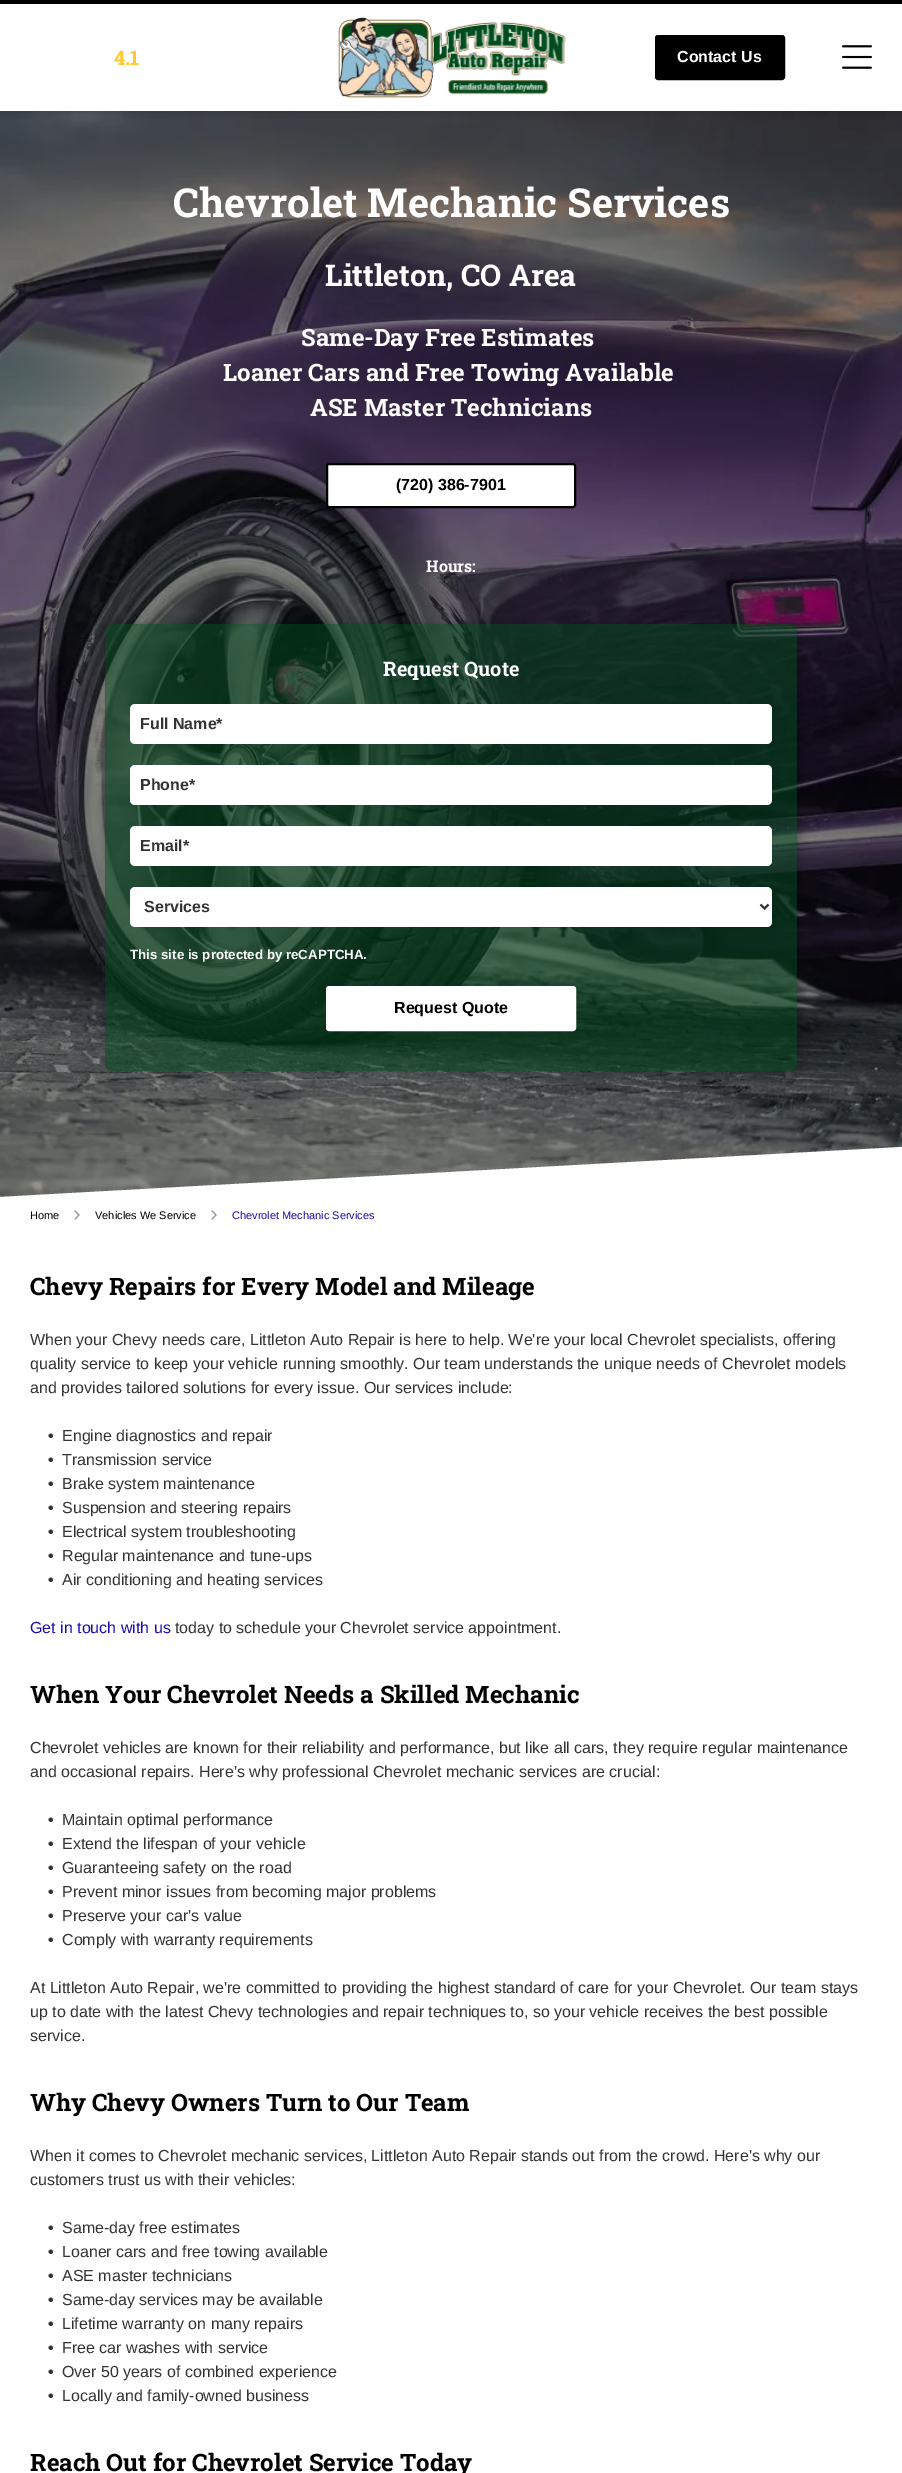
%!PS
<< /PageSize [902 2473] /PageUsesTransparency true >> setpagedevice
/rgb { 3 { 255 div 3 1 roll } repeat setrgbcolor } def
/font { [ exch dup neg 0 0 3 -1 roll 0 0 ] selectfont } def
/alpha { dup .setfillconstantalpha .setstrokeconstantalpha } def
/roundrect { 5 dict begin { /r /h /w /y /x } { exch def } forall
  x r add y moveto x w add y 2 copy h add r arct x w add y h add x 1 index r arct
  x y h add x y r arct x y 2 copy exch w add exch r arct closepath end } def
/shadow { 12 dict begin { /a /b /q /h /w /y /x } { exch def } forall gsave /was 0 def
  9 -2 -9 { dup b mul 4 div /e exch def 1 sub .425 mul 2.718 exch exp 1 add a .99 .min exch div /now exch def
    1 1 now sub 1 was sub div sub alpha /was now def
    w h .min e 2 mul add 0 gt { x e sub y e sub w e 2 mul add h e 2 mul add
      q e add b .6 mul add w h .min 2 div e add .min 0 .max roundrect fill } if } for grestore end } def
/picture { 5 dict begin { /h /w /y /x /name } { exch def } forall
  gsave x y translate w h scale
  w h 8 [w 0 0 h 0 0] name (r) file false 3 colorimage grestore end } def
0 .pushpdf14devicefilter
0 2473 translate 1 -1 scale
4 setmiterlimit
255 255 255 rgb
0 0 902 2473 rectfill
(img/3.rgb) 0 111 902 1086 picture
gsave
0 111 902 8 rectclip
0 0 0 rgb
0 0 902 111 0 5.5 0.25 shadow
grestore
0 0 0 rgb
0 0 902 4 rectfill
(img/1.rgb) 338 17 228 82 picture
656 36 128 43 2 roundrect gsave fill grestore
2 setlinewidth
stroke
(img/2.rgb) 842 45 30 24 picture
255 255 255 rgb
327 464 248 43 2 roundrect gsave fill grestore
0 0 0 rgb
stroke
gsave
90 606 moveto 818 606 lineto 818 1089 lineto 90 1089 lineto closepath 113 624 moveto 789 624 lineto 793.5 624 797 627.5 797 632 curveto 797 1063 lineto 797 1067.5 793.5 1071 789 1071 curveto 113 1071 lineto 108.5 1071 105 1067.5 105 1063 curveto 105 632 lineto 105 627.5 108.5 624 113 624 curveto closepath eoclip newpath
108 624 692 447 8 5.5 0.25 shadow
grestore
0.5 alpha
0 74 29 rgb
105 624 692 447 8 roundrect fill
1 alpha
255 255 255 rgb
130 704 642 40 5 roundrect fill
130 765 642 40 5 roundrect fill
130 826 642 40 5 roundrect fill
130 887 642 40 5 roundrect fill
51 51 51 rgb
760.5 904.5 moveto 764.5 908.5 lineto 768.5 904.5 lineto stroke
255 255 255 rgb
327 987 248 43 2 roundrect gsave fill grestore
stroke
0 1197 moveto 902 1147 lineto 902 1197 lineto closepath fill
(img/4.rgb) 74 1210 6 10 picture
(img/4.rgb) 211 1210 6 10 picture
/RobotoSlab-ExtraBold 20 font
255 200 52 rgb
114 65 moveto (4.1) show
/LiberationSans-Bold 16 font
255 255 255 rgb
677 62 moveto (Contact Us) show
/RobotoSlab-Bold 40 font
173 217 moveto (Chevrolet Mechanic Services) show
/RobotoSlab-Bold 30 font
325 286 moveto (Littleton, CO Area) show
/RobotoSlab-Bold 24 font
[
  [(Same-Day Free Estimates) 301 346]
  [(Loaner Cars and Free Towing Available) 223 381]
  [(ASE Master Technicians) 310 416]
] { aload pop moveto show } forall
/LiberationSans-Bold 16 font
0 0 0 rgb
396 490 moveto (\(720\) 386-7901) show
/RobotoSlab-Bold 16 font
255 255 255 rgb
426 572 moveto (Hours:) show
/RobotoSlab-Bold 20 font
383 676 moveto (Request Quote) show
/LiberationSans-Bold 16 font
51 51 51 rgb
[
  [(Full Name*) 140 729]
  [(Phone*) 140 790]
  [(Email*) 140 851]
  [(Services) 144 912]
] { aload pop moveto show } forall
/LiberationSans-Bold 13.3 font
255 255 255 rgb
130 959 moveto (This site is protected by reCAPTCHA.) show
/LiberationSans-Bold 16 font
0 0 0 rgb
394 1013 moveto (Request Quote) show
/LiberationSans-Regular 11 font
30 1219 moveto (Home) show
95 1219 moveto (Vehicles We Service) show
26 13 171 rgb
232 1219 moveto (Chevrolet Mechanic Services) show
/RobotoSlab-Bold 24 font
0 0 0 rgb
30 1295 moveto (Chevy Repairs for Every Model and Mileage) show
/LiberationSans-Regular 16 font
51 51 51 rgb
[
  [(When your Chevy needs care, Littleton Auto Repair is here to help. We're your local Chevrolet specialists, offering) 30 1345]
  [(quality service to keep your vehicle running smoothly. Our team understands the unique needs of Chevrolet models) 30 1369]
  [(and provides tailored solutions for every issue. Our services include:) 30 1393]
] { aload pop moveto show } forall
/LiberationSans-Bold 16 font
48 1441 moveto (•) show
/LiberationSans-Regular 16 font
62 1441 moveto (Engine diagnostics and repair) show
/LiberationSans-Bold 16 font
48 1465 moveto (•) show
/LiberationSans-Regular 16 font
62 1465 moveto (Transmission service) show
/LiberationSans-Bold 16 font
48 1489 moveto (•) show
/LiberationSans-Regular 16 font
62 1489 moveto (Brake system maintenance) show
/LiberationSans-Bold 16 font
48 1513 moveto (•) show
/LiberationSans-Regular 16 font
62 1513 moveto (Suspension and steering repairs) show
/LiberationSans-Bold 16 font
48 1537 moveto (•) show
/LiberationSans-Regular 16 font
62 1537 moveto (Electrical system troubleshooting) show
/LiberationSans-Bold 16 font
48 1561 moveto (•) show
/LiberationSans-Regular 16 font
62 1561 moveto (Regular maintenance and tune-ups) show
/LiberationSans-Bold 16 font
48 1585 moveto (•) show
/LiberationSans-Regular 16 font
62 1585 moveto (Air conditioning and heating services) show
26 13 171 rgb
30 1633 moveto (Get in touch with us) show
51 51 51 rgb
175 1633 moveto (today to schedule your Chevrolet service appointment.) show
/RobotoSlab-Bold 24 font
0 0 0 rgb
30 1703 moveto (When Your Chevrolet Needs a Skilled Mechanic) show
/LiberationSans-Regular 16 font
51 51 51 rgb
30 1753 moveto (Chevrolet vehicles are known for their reliability and performance, but like all cars, they require regular maintenance) show
30 1777 moveto (and occasional repairs. Here's why professional Chevrolet mechanic services are crucial:) show
/LiberationSans-Bold 16 font
48 1825 moveto (•) show
/LiberationSans-Regular 16 font
62 1825 moveto (Maintain optimal performance) show
/LiberationSans-Bold 16 font
48 1849 moveto (•) show
/LiberationSans-Regular 16 font
62 1849 moveto (Extend the lifespan of your vehicle) show
/LiberationSans-Bold 16 font
48 1873 moveto (•) show
/LiberationSans-Regular 16 font
62 1873 moveto (Guaranteeing safety on the road) show
/LiberationSans-Bold 16 font
48 1897 moveto (•) show
/LiberationSans-Regular 16 font
62 1897 moveto (Prevent minor issues from becoming major problems) show
/LiberationSans-Bold 16 font
48 1921 moveto (•) show
/LiberationSans-Regular 16 font
62 1921 moveto (Preserve your car's value) show
/LiberationSans-Bold 16 font
48 1945 moveto (•) show
/LiberationSans-Regular 16 font
[
  [(Comply with warranty requirements) 62 1945]
  [(At Littleton Auto Repair, we're committed to providing the highest standard of care for your Chevrolet. Our team stays) 30 1993]
  [(up to date with the latest Chevy technologies and repair techniques to, so your vehicle receives the best possible) 30 2017]
  [(service.) 30 2041]
] { aload pop moveto show } forall
/RobotoSlab-Bold 24 font
0 0 0 rgb
30 2111 moveto (Why Chevy Owners Turn to Our Team) show
/LiberationSans-Regular 16 font
51 51 51 rgb
30 2161 moveto (When it comes to Chevrolet mechanic services, Littleton Auto Repair stands out from the crowd. Here's why our) show
30 2185 moveto (customers trust us with their vehicles:) show
/LiberationSans-Bold 16 font
48 2233 moveto (•) show
/LiberationSans-Regular 16 font
62 2233 moveto (Same-day free estimates) show
/LiberationSans-Bold 16 font
48 2257 moveto (•) show
/LiberationSans-Regular 16 font
62 2257 moveto (Loaner cars and free towing available) show
/LiberationSans-Bold 16 font
48 2281 moveto (•) show
/LiberationSans-Regular 16 font
62 2281 moveto (ASE master technicians) show
/LiberationSans-Bold 16 font
48 2305 moveto (•) show
/LiberationSans-Regular 16 font
62 2305 moveto (Same-day services may be available) show
/LiberationSans-Bold 16 font
48 2329 moveto (•) show
/LiberationSans-Regular 16 font
62 2329 moveto (Lifetime warranty on many repairs) show
/LiberationSans-Bold 16 font
48 2353 moveto (•) show
/LiberationSans-Regular 16 font
62 2353 moveto (Free car washes with service) show
/LiberationSans-Bold 16 font
48 2377 moveto (•) show
/LiberationSans-Regular 16 font
62 2377 moveto (Over 50 years of combined experience) show
/LiberationSans-Bold 16 font
48 2401 moveto (•) show
/LiberationSans-Regular 16 font
62 2401 moveto (Locally and family-owned business) show
/RobotoSlab-Bold 24 font
0 0 0 rgb
30 2471 moveto (Reach Out for Chevrolet Service Today) show
.poppdf14devicefilter showpage
